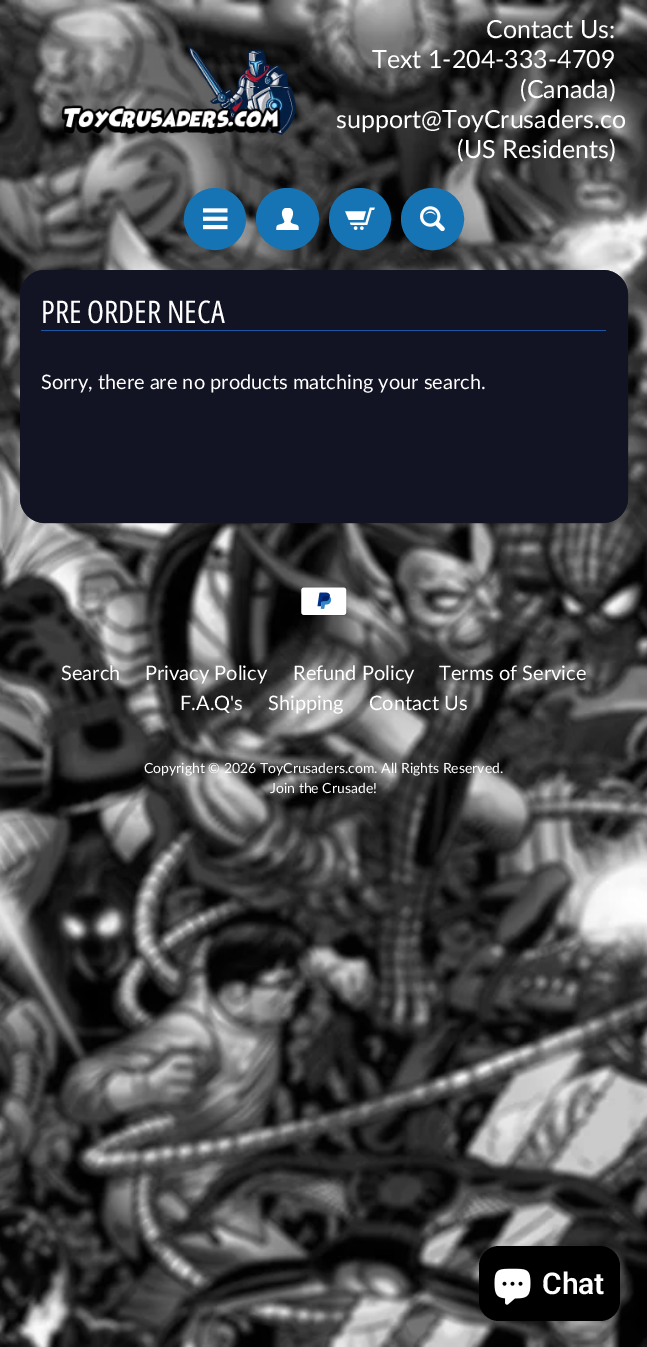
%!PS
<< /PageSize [647 1347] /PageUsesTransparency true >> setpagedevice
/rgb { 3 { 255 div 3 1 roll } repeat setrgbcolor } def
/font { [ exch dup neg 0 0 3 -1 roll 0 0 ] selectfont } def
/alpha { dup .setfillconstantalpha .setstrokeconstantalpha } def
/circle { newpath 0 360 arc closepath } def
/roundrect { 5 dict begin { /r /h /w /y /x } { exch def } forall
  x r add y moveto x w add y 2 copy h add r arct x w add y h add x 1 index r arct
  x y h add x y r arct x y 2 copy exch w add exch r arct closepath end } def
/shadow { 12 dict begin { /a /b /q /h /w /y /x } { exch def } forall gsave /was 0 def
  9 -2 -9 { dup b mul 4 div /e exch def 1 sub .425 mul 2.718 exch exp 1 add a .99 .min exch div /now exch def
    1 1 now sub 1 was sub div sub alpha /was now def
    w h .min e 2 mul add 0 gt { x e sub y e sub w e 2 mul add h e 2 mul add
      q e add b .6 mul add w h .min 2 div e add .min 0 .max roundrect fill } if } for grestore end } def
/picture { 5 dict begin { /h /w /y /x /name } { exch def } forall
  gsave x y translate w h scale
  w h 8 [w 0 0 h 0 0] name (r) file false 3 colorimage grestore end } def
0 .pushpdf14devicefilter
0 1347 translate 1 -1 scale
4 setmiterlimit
255 255 255 rgb
0 0 647 1347 rectfill
(img/1.rgb) 0 0 647 1347 picture
(img/2.rgb) 61 45 235 90 picture
22 116 181 rgb
215 219 29 circle gsave fill grestore
4 setlinewidth
stroke
(img/3.rgb) 203 208 25 22 picture
258 190 59 58 29 roundrect gsave fill grestore
stroke
(img/4.rgb) 276 208 23 22 picture
360 219 29 circle gsave fill grestore
stroke
(img/5.rgb) 345 207 30 23 picture
403 190 59 58 29 roundrect gsave fill grestore
stroke
(img/6.rgb) 420 206 25 25 picture
18 20 36 rgb
20 270 608 253 25 roundrect fill
0.7 alpha
1 setlinewidth
20.5 270.5 607 252 24.5 roundrect stroke
1 alpha
28 85 164 rgb
41 330 565 1 rectfill
(img/7.rgb) 301 586 47 30 picture
0 0 0 rgb
479 1246 141 75 20 3 0.15 shadow
479 1246 141 75 20 roundrect fill
(img/8.rgb) 494 1268 37 37 picture
/Lato-Regular 25 font
255 255 255 rgb
[
  [(Contact Us:) 486 38]
  [(Text 1-204-333-4709) 372 68]
  [(\(Canada\)) 520 98]
  [(support@ToyCrusaders.co) 336 128]
  [(\(US Residents\)) 457 158]
] { aload pop moveto show } forall
/OpenSansCondensed-Regular 31.25 font
41 323 moveto (PRE ORDER NECA) show
/Lato-Regular 20 font
[
  [(Sorry, there are no products matching your search.) 41 389]
  [(Search) 61 680]
  [(Privacy Policy) 145 680]
  [(Refund Policy) 293 680]
  [(Terms of Service) 439 680]
  [(F.A.Q's) 180 710]
  [(Shipping) 268 710]
  [(Contact Us) 369 710]
] { aload pop moveto show } forall
/Lato-Regular 14 font
144 773 moveto (Copyright © 2026 ToyCrusaders.com. All Rights Reserved.) show
270 793 moveto (Join the Crusade!) show
/Roboto-SemiBold 30 font
542 1294 moveto (Chat) show
.poppdf14devicefilter showpage
